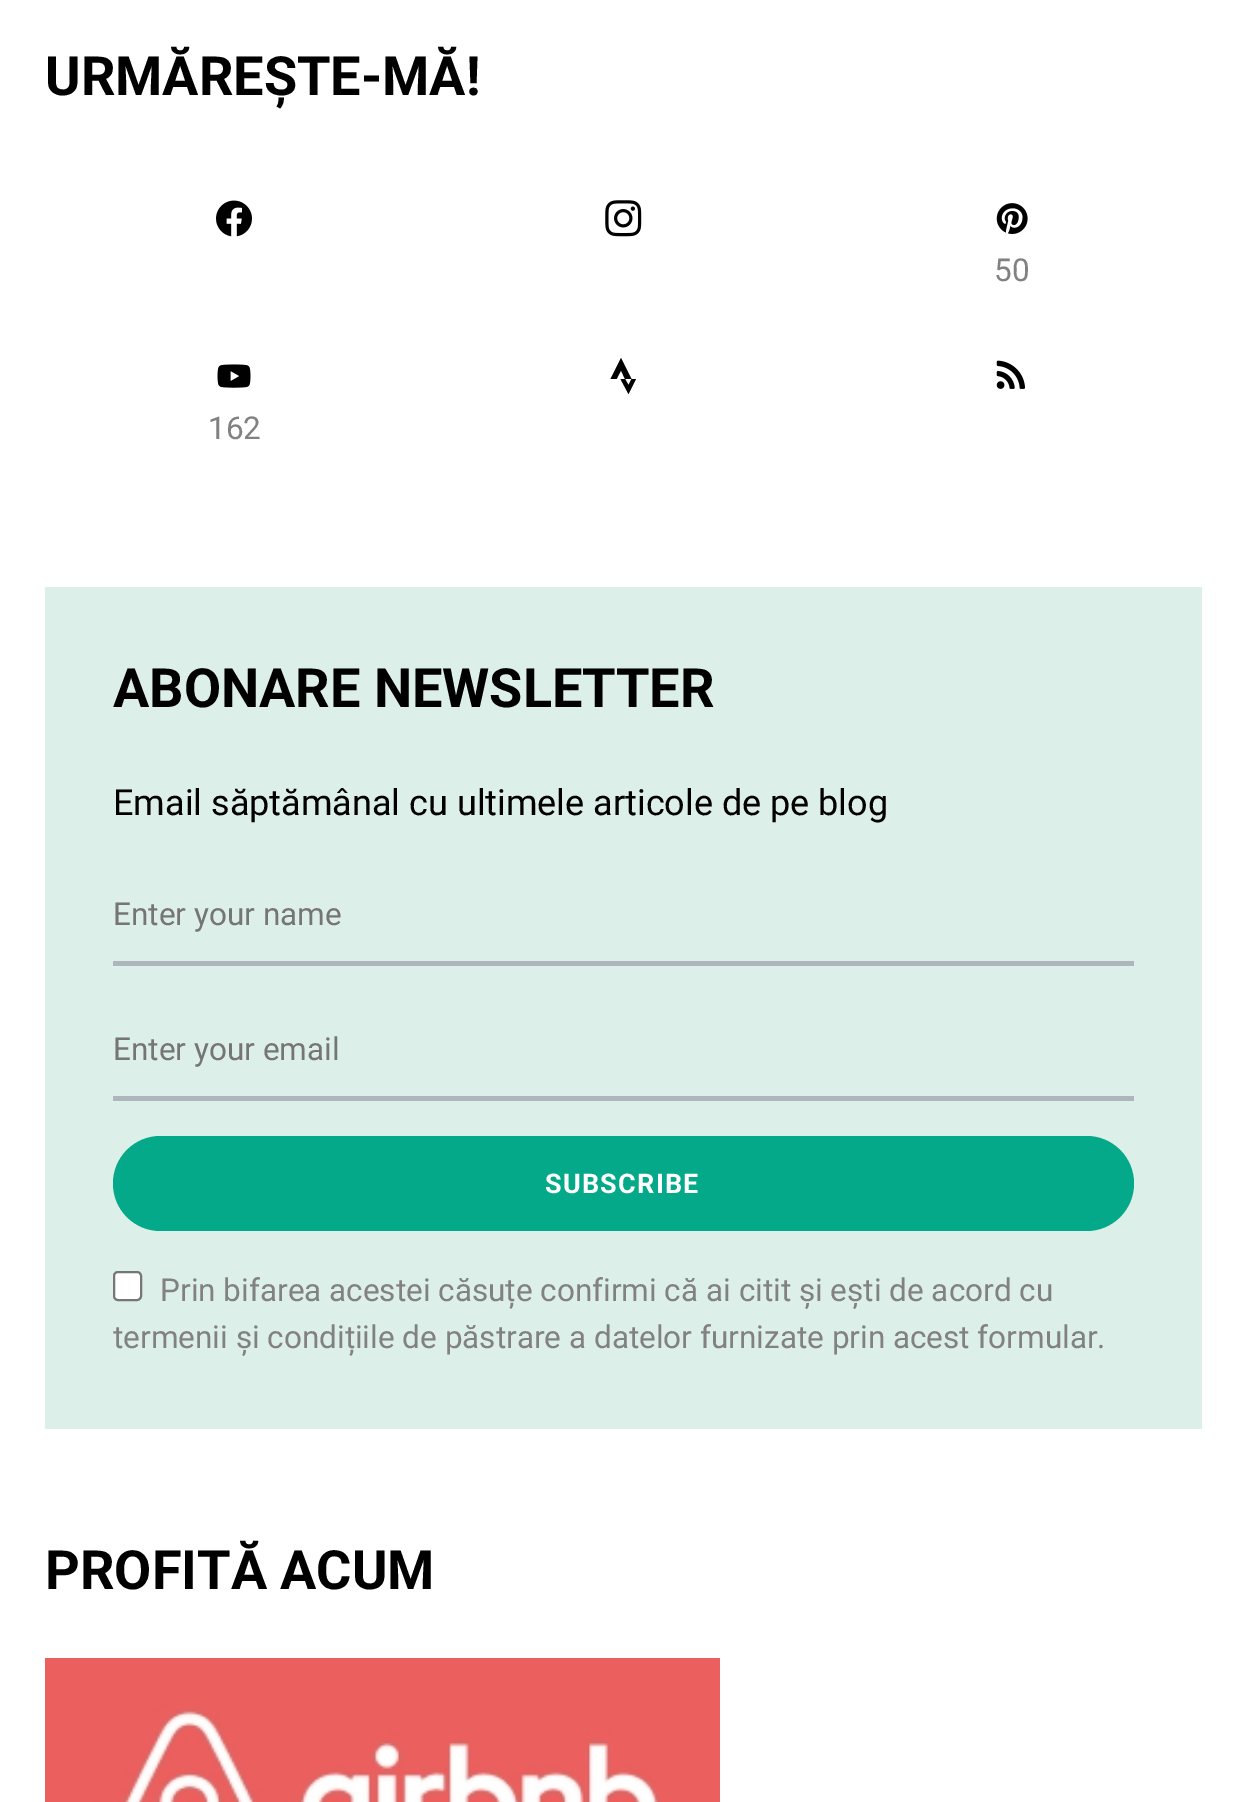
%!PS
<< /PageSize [1245 1802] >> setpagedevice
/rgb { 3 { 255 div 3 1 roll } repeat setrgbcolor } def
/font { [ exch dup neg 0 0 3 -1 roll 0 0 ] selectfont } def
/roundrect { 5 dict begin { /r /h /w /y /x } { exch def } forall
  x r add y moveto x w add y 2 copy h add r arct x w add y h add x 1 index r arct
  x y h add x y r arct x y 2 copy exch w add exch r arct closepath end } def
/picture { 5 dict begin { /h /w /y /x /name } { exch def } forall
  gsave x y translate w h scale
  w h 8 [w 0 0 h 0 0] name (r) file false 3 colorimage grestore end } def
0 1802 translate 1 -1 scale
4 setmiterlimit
255 255 255 rgb
0 0 1245 1802 rectfill
(img/1.rgb) 216 200 36 37 picture
(img/2.rgb) 605 200 37 37 picture
(img/3.rgb) 996 203 32 31 picture
0 0 0 rgb
628.5 385 moveto 625 379 lineto 620.5 379 lineto 628.5 394 lineto 636 379 lineto 631.5 379 lineto closepath 621 370.5 moveto 625 379 lineto 631.5 379 lineto 621 358 lineto 610.5 379 lineto 616.5 379 lineto closepath fill
(img/4.rgb) 996 360 29 29 picture
(img/5.rgb) 217 364 34 24 picture
[
  [45 587 1157 842 221 239 233]
  [113 961 1021 5 173 181 189]
  [113 1096 1021 5 173 181 189]
] { aload pop rgb rectfill } forall
3 169 136 rgb
113 1136 1021 95 47.5 roundrect fill
255 255 255 rgb
114 1272 27 28 4 roundrect gsave fill grestore
118 118 118 rgb
2 setlinewidth
stroke
(img/6.rgb) 45 1658 675 144 picture
/Roboto-Bold 54 font
0 0 0 rgb
45 95 moveto (URMĂREȘTE-MĂ!) show
/Roboto-Regular 31.5 font
129 129 129 rgb
994 281 moveto (50) show
208 439 moveto (162) show
/Roboto-Bold 54 font
0 0 0 rgb
113 707 moveto (ABONARE NEWSLETTER) show
/Roboto-Regular 36 font
113 815 moveto (Email săptămânal cu ultimele articole de pe blog) show
/Roboto-Regular 31.5 font
117 117 117 rgb
113 925 moveto (Enter your name) show
113 1060 moveto (Enter your email) show
/Roboto-Bold 27 font
255 255 255 rgb
545 1193 moveto 1.25 0 (SUBSCRIBE) ashow
/Roboto-Regular 31.5 font
129 129 129 rgb
160 1301 moveto (Prin bifarea acestei căsuțe confirmi că ai citit și ești de acord cu) show
113 1348 moveto (termenii și condițiile de păstrare a datelor furnizate prin acest formular.) show
/Roboto-Bold 54 font
0 0 0 rgb
45 1589 moveto (PROFITĂ ACUM) show
showpage
